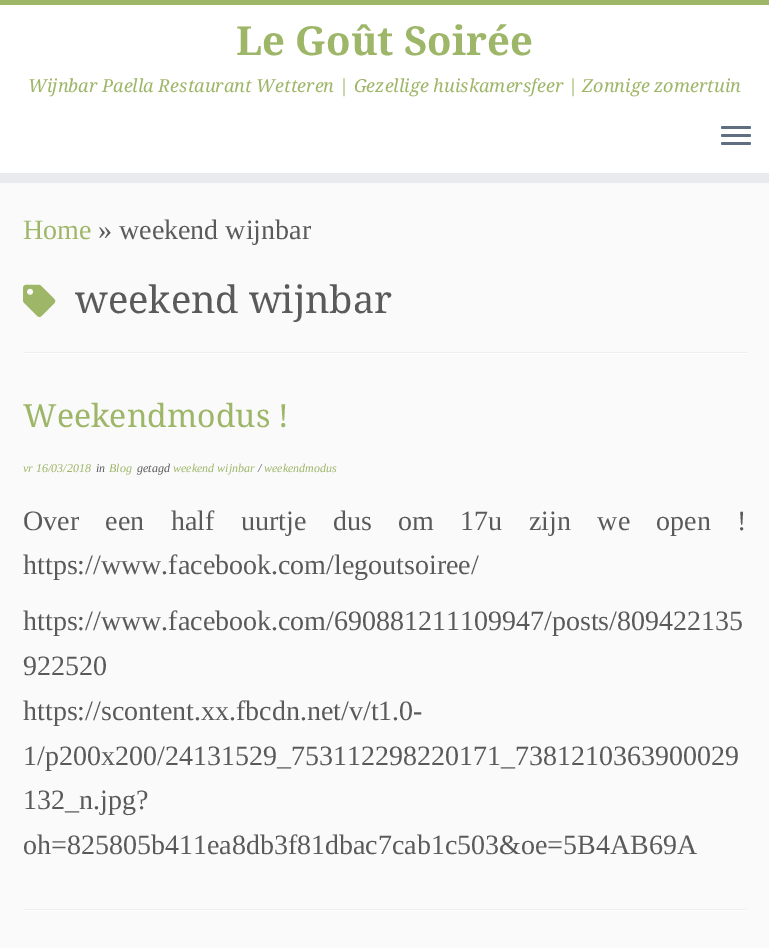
%!PS
<< /PageSize [769 948] >> setpagedevice
/rgb { 3 { 255 div 3 1 roll } repeat setrgbcolor } def
/font { [ exch dup neg 0 0 3 -1 roll 0 0 ] selectfont } def
/roundrect { 5 dict begin { /r /h /w /y /x } { exch def } forall
  x r add y moveto x w add y 2 copy h add r arct x w add y h add x 1 index r arct
  x y h add x y r arct x y 2 copy exch w add exch r arct closepath end } def
/picture { 5 dict begin { /h /w /y /x /name } { exch def } forall
  gsave x y translate w h scale
  w h 8 [w 0 0 h 0 0] name (r) file false 3 colorimage grestore end } def
0 948 translate 1 -1 scale
4 setmiterlimit
250 250 250 rgb
0 0 769 948 rectfill
[
  [0 5 769 168 255 255 255]
  [0 0 769 5 157 182 104]
  [0 173 769 10 233 234 238]
] { aload pop rgb rectfill } forall
95 111 129 rgb
721 126 30 3 1.5 roundrect fill
721 134 30 3 1.5 roundrect fill
721 142 30 3 1.5 roundrect fill
(img/1.rgb) 23 284 33 33 picture
[
  [23 352 724 1 238 238 238]
  [23 353 724 1 255 255 255]
  [23 909 724 1 238 238 238]
  [23 910 724 1 255 255 255]
] { aload pop rgb rectfill } forall
/NotoSerif-Bold 40 font
157 182 104 rgb
236 55 moveto (Le Goût Soirée) show
/NotoSerif-Italic 18 font
28 92 moveto (Wijnbar Paella Restaurant Wetteren | Gezellige huiskamersfeer | Zonnige zomertuin) show
/LiberationSerif-Regular 28 font
23 239 moveto (Home) show
90 90 90 rgb
98 239 moveto (» weekend wijnbar) show
/NotoSerif-Regular 38 font
75 313 moveto (weekend wijnbar) show
/NotoSerif-Regular 32 font
157 182 104 rgb
23 427 moveto (Weekendmodus !) show
/LiberationSerif-Italic 12 font
23 472 moveto (vr 16/03/2018) show
90 90 90 rgb
96 472 moveto (in) show
157 182 104 rgb
109 472 moveto (Blog) show
90 90 90 rgb
137 472 moveto (getagd) show
157 182 104 rgb
173 472 moveto (weekend wijnbar) show
90 90 90 rgb
258 472 moveto (/) show
157 182 104 rgb
264 472 moveto (weekendmodus) show
/LiberationSerif-Regular 28 font
90 90 90 rgb
23 530 moveto 19.5 0 32 (Over een half uurtje dus om 17u zijn we open !) widthshow
[
  [(https://www.facebook.com/legoutsoiree/) 23 574]
  [(https://www.facebook.com/690881211109947/posts/809422135) 23 630]
  [(922520) 23 675]
  [(https://scontent.xx.fbcdn.net/v/t1.0-) 23 720]
  [(1/p200x200/24131529_753112298220171_7381210363900029) 23 765]
  [(132_n.jpg?) 23 809]
  [(oh=825805b411ea8db3f81dbac7cab1c503&oe=5B4AB69A) 23 854]
] { aload pop moveto show } forall
showpage
